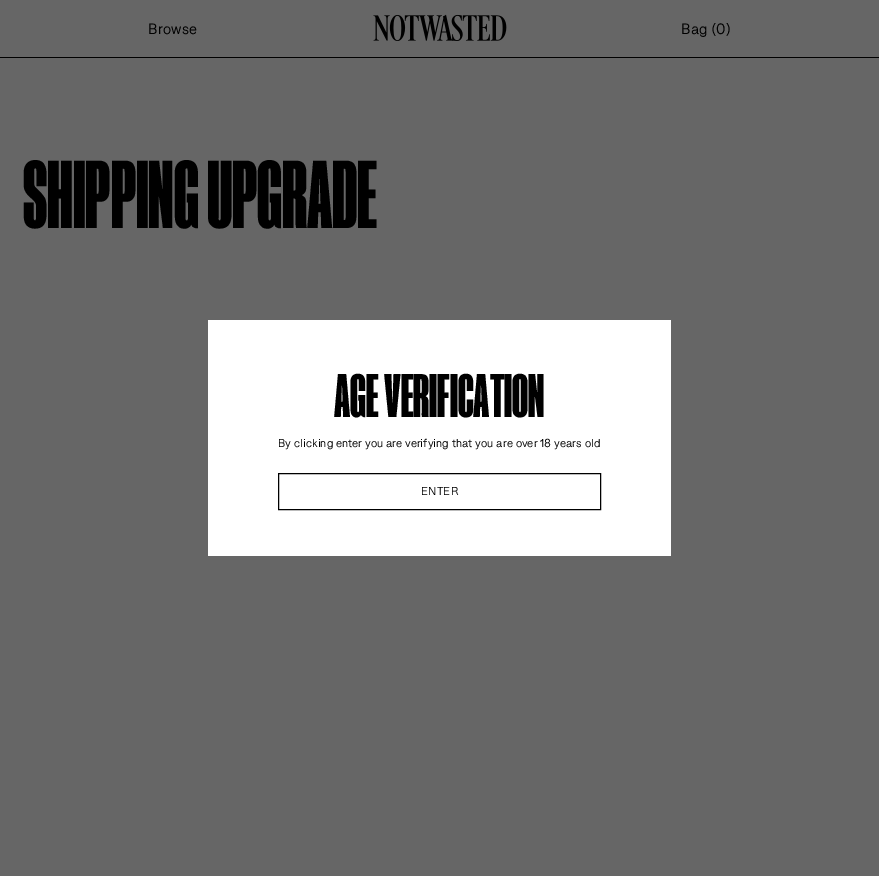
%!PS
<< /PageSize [879 876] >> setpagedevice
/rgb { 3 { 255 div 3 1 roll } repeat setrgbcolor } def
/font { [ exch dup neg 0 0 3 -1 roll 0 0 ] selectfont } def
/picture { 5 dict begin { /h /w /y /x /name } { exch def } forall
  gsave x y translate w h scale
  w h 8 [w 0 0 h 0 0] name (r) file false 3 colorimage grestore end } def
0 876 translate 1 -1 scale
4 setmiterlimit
102 102 102 rgb
0 0 879 876 rectfill
0 0 0 rgb
0 57 879 1 rectfill
(img/1.rgb) 373 14 134 27 picture
255 255 255 rgb
208 320 463 236 rectfill
0 0 0 rgb
278.5 473.5 322 36 rectstroke
/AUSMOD-Light 15 font
148 34 moveto 0.25 0 (Browse) ashow
681 34 moveto 0.25 0 (Bag \(0\)) ashow
/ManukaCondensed-Black 91 font
23 228 moveto (SHIPPING UPGRADE) show
/ManukaCondensed-Black 58 font
334 417 moveto (AGE VERIFICATION) show
/AUSMOD-Light 11.6 font
278 447 moveto (By clicking enter you are verifying that you are over 18 years old) show
421 495 moveto 0.25 0 (ENTER) ashow
showpage
